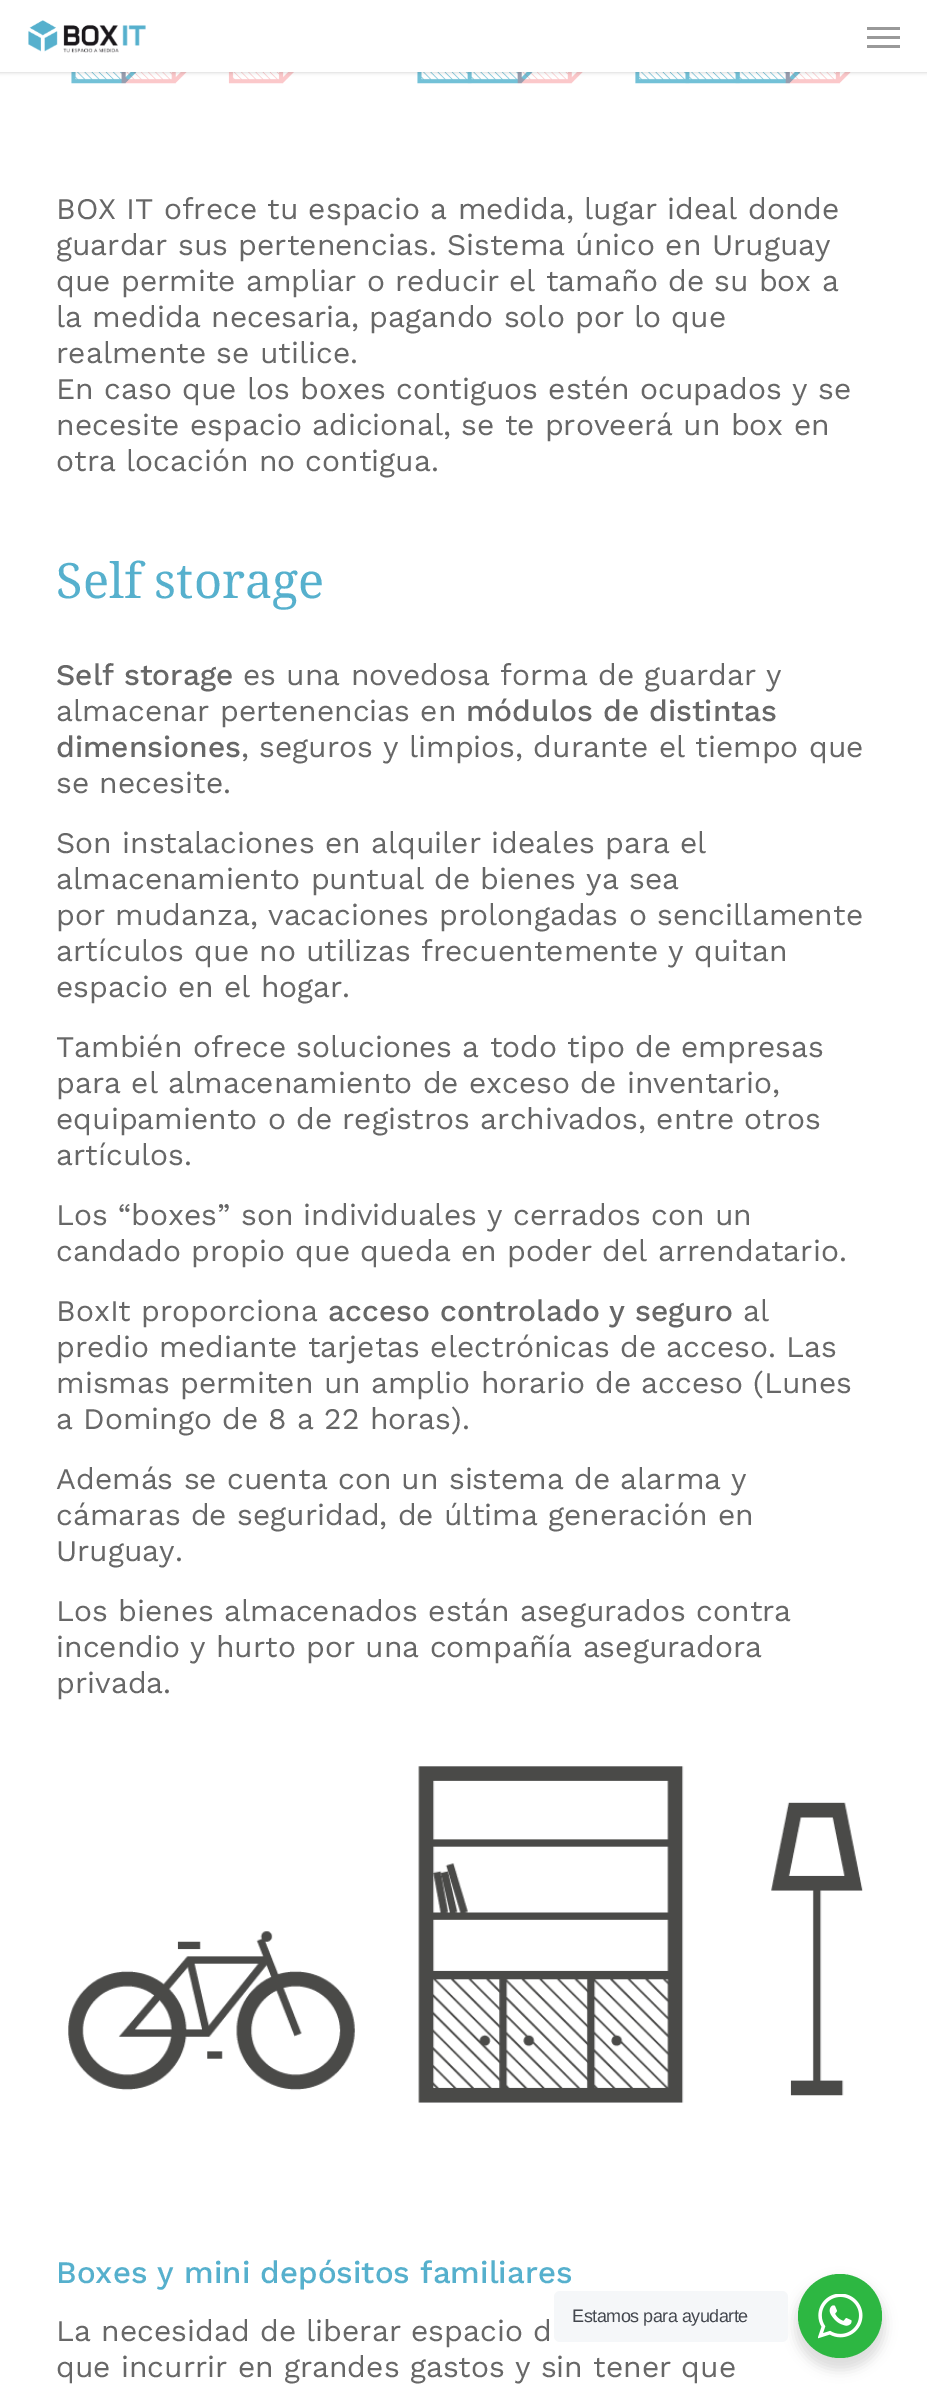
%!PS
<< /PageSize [927 2402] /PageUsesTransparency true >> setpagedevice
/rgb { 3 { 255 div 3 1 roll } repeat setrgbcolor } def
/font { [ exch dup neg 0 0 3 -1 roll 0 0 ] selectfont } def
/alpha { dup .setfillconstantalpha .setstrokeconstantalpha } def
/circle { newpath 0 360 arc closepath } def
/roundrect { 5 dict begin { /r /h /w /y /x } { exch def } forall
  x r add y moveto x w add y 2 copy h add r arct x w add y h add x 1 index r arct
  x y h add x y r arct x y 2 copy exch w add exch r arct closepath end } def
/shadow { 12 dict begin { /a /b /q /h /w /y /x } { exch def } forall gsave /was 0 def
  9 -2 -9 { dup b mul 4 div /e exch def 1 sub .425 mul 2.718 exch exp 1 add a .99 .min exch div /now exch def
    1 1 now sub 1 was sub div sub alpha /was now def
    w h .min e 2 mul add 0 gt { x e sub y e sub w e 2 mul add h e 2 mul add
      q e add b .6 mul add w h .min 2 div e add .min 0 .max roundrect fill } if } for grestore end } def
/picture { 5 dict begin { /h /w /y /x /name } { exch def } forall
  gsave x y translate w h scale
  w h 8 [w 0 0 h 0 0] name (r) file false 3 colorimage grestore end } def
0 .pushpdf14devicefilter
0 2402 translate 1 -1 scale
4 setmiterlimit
255 255 255 rgb
0 0 927 2402 rectfill
(img/2.rgb) 71 72 780 12 picture
0 0 0 rgb
0 0 927 72 0 2 0.22 shadow
255 255 255 rgb
0 0 927 72 rectfill
(img/1.rgb) 28 20 118 33 picture
[
  [867 27 33 3 153 153 153]
  [867 45 33 3 153 153 153]
  [867 36 33 3 153 153 153]
] { aload pop rgb rectfill } forall
(img/3.rgb) 68 1766 795 337 picture
0 0 0 rgb
795 2280 90 90 45 6 0.14 shadow
245 247 249 rgb
554 2291 234 51 6 roundrect fill
45 183 66 rgb
840 2316 42 circle fill
(img/4.rgb) 818 2294 45 45 picture
/WorkSans-Regular 30 font
103 103 103 rgb
[
  [(BOX IT ofrece tu espacio a medida, lugar ideal donde) 56 219]
  [(guardar sus pertenencias. Sistema único en Uruguay) 56 255]
  [(que permite ampliar o reducir el tamaño de su box a) 56 291]
  [(la medida necesaria, pagando solo por lo que) 56 327]
  [(realmente se utilice.) 56 363]
  [(En caso que los boxes contiguos estén ocupados y se) 56 399]
  [(necesite espacio adicional, se te proveerá un box en) 56 435]
  [(otra locación no contigua.) 56 471]
] { aload pop moveto show } forall
/NotoSerif-Regular 48.75 font
86 176 205 rgb
56 598 moveto (Self storage) show
/WorkSans-Medium 30 font
103 103 103 rgb
56 685 moveto (Self storage) show
/WorkSans-Regular 30 font
243 685 moveto (es una novedosa forma de guardar y) show
56 721 moveto (almacenar pertenencias en) show
/WorkSans-Medium 30 font
466 721 moveto (módulos de distintas) show
56 757 moveto (dimensiones) show
/WorkSans-Regular 30 font
[
  [(, seguros y limpios, durante el tiempo que) 241 757]
  [(se necesite.) 56 793]
  [(Son instalaciones en alquiler ideales para el) 56 853]
  [(almacenamiento puntual de bienes ya sea) 56 889]
  [(por mudanza, vacaciones prolongadas o sencillamente) 56 925]
  [(artículos que no utilizas frecuentemente y quitan) 56 961]
  [(espacio en el hogar.) 56 997]
  [(También ofrece soluciones a todo tipo de empresas) 56 1057]
  [(para el almacenamiento de exceso de inventario,) 56 1093]
  [(equipamiento o de registros archivados, entre otros) 56 1129]
  [(artículos.) 56 1165]
  [(Los “boxes” son individuales y cerrados con un) 56 1225]
  [(candado propio que queda en poder del arrendatario.) 56 1261]
  [(BoxIt proporciona) 56 1321]
] { aload pop moveto show } forall
/WorkSans-Medium 30 font
328 1321 moveto (acceso controlado y seguro) show
/WorkSans-Regular 30 font
[
  [(al) 743 1321]
  [(predio mediante tarjetas electrónicas de acceso. Las) 56 1357]
  [(mismas permiten un amplio horario de acceso \(Lunes) 56 1393]
  [(a Domingo de 8 a 22 horas\).) 56 1429]
  [(Además se cuenta con un sistema de alarma y) 56 1489]
  [(cámaras de seguridad, de última generación en) 56 1525]
  [(Uruguay.) 56 1561]
  [(Los bienes almacenados están asegurados contra) 56 1621]
  [(incendio y hurto por una compañía aseguradora) 56 1657]
  [(privada.) 56 1693]
] { aload pop moveto show } forall
/WorkSans-Medium 31.25 font
86 176 205 rgb
56 2283 moveto (Boxes y mini depósitos familiares) show
/WorkSans-Regular 30 font
103 103 103 rgb
56 2341 moveto (La necesidad de liberar espacio d) show
56 2377 moveto (que incurrir en grandes gastos y sin tener que) show
/LiberationSans-Regular 18 font
67 71 78 rgb
572 2322 moveto -0.5 0 (Estamos para ayudarte) ashow
.poppdf14devicefilter showpage
